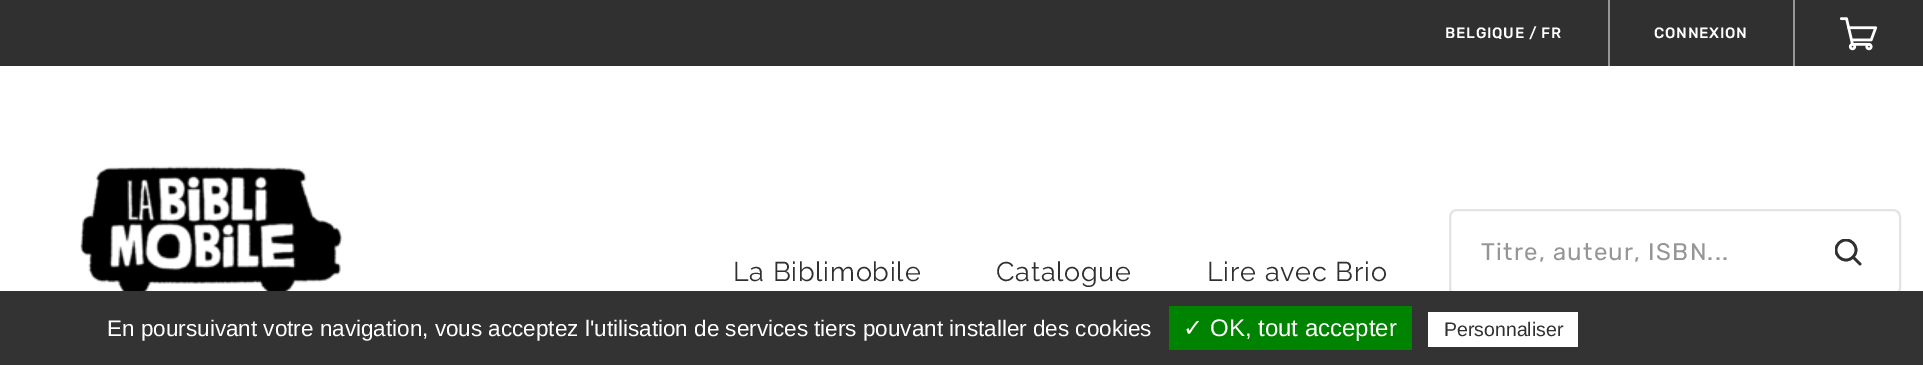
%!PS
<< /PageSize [1923 365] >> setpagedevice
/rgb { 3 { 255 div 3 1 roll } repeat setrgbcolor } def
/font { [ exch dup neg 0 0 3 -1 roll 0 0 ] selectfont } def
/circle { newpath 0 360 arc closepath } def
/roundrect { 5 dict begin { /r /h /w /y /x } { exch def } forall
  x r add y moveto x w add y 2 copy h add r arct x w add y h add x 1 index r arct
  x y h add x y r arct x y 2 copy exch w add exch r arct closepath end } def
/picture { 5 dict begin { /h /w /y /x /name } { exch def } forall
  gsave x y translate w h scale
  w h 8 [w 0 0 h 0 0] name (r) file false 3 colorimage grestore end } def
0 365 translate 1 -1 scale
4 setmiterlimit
255 255 255 rgb
0 0 1923 365 rectfill
[
  [0 0 1923 66 48 48 48]
  [1608 0 2 66 150 150 150]
  [1793 0 2 66 150 150 150]
] { aload pop rgb rectfill } forall
(img/1.rgb) 1839 17 39 34 picture
(img/2.rgb) 80 166 263 125 picture
228 228 228 rgb
2 setlinewidth
1450 210 450 85 7 roundrect stroke
gsave
1835 239 27 27 rectclip
48 48 48 rgb
2.7 setlinewidth
1846 250 10 circle stroke
grestore
48 48 48 rgb
2.7 setlinewidth
1 setlinecap
1 setlinejoin
1860 264 moveto 1853 257 lineto stroke
[
  [0 291 1923 74 51 51 51]
  [1169 306 243 44 0 131 0]
  [1428 312 150 35 255 255 255]
] { aload pop rgb rectfill } forall
/Rubik-Medium 15 font
1445 38 moveto 0.75 0 (BELGIQUE / FR) ashow
1654 38 moveto 0.75 0 (CONNEXION) ashow
/Rubik-Regular 24 font
150 150 150 rgb
1481 260 moveto 1.2 0 (Titre, auteur, ISBN...) ashow
/Raleway-Regular 27 font
48 48 48 rgb
733 281 moveto 0.75 0 (La Biblimobile) ashow
996 281 moveto 0.75 0 (Catalogue) ashow
1207 281 moveto 0.75 0 (Lire avec Brio) ashow
/LiberationSans-Regular 22.5 font
255 255 255 rgb
107 336 moveto (En poursuivant votre navigation, vous acceptez l'utilisation de services tiers pouvant installer des cookies) show
/DejaVuSans-Regular 24 font
1183 336 moveto (✓) show
/LiberationSans-Regular 24 font
1210 336 moveto (OK, tout accepter) show
/LiberationSans-Regular 19.5 font
48 48 48 rgb
1444 336 moveto (Personnaliser) show
showpage
